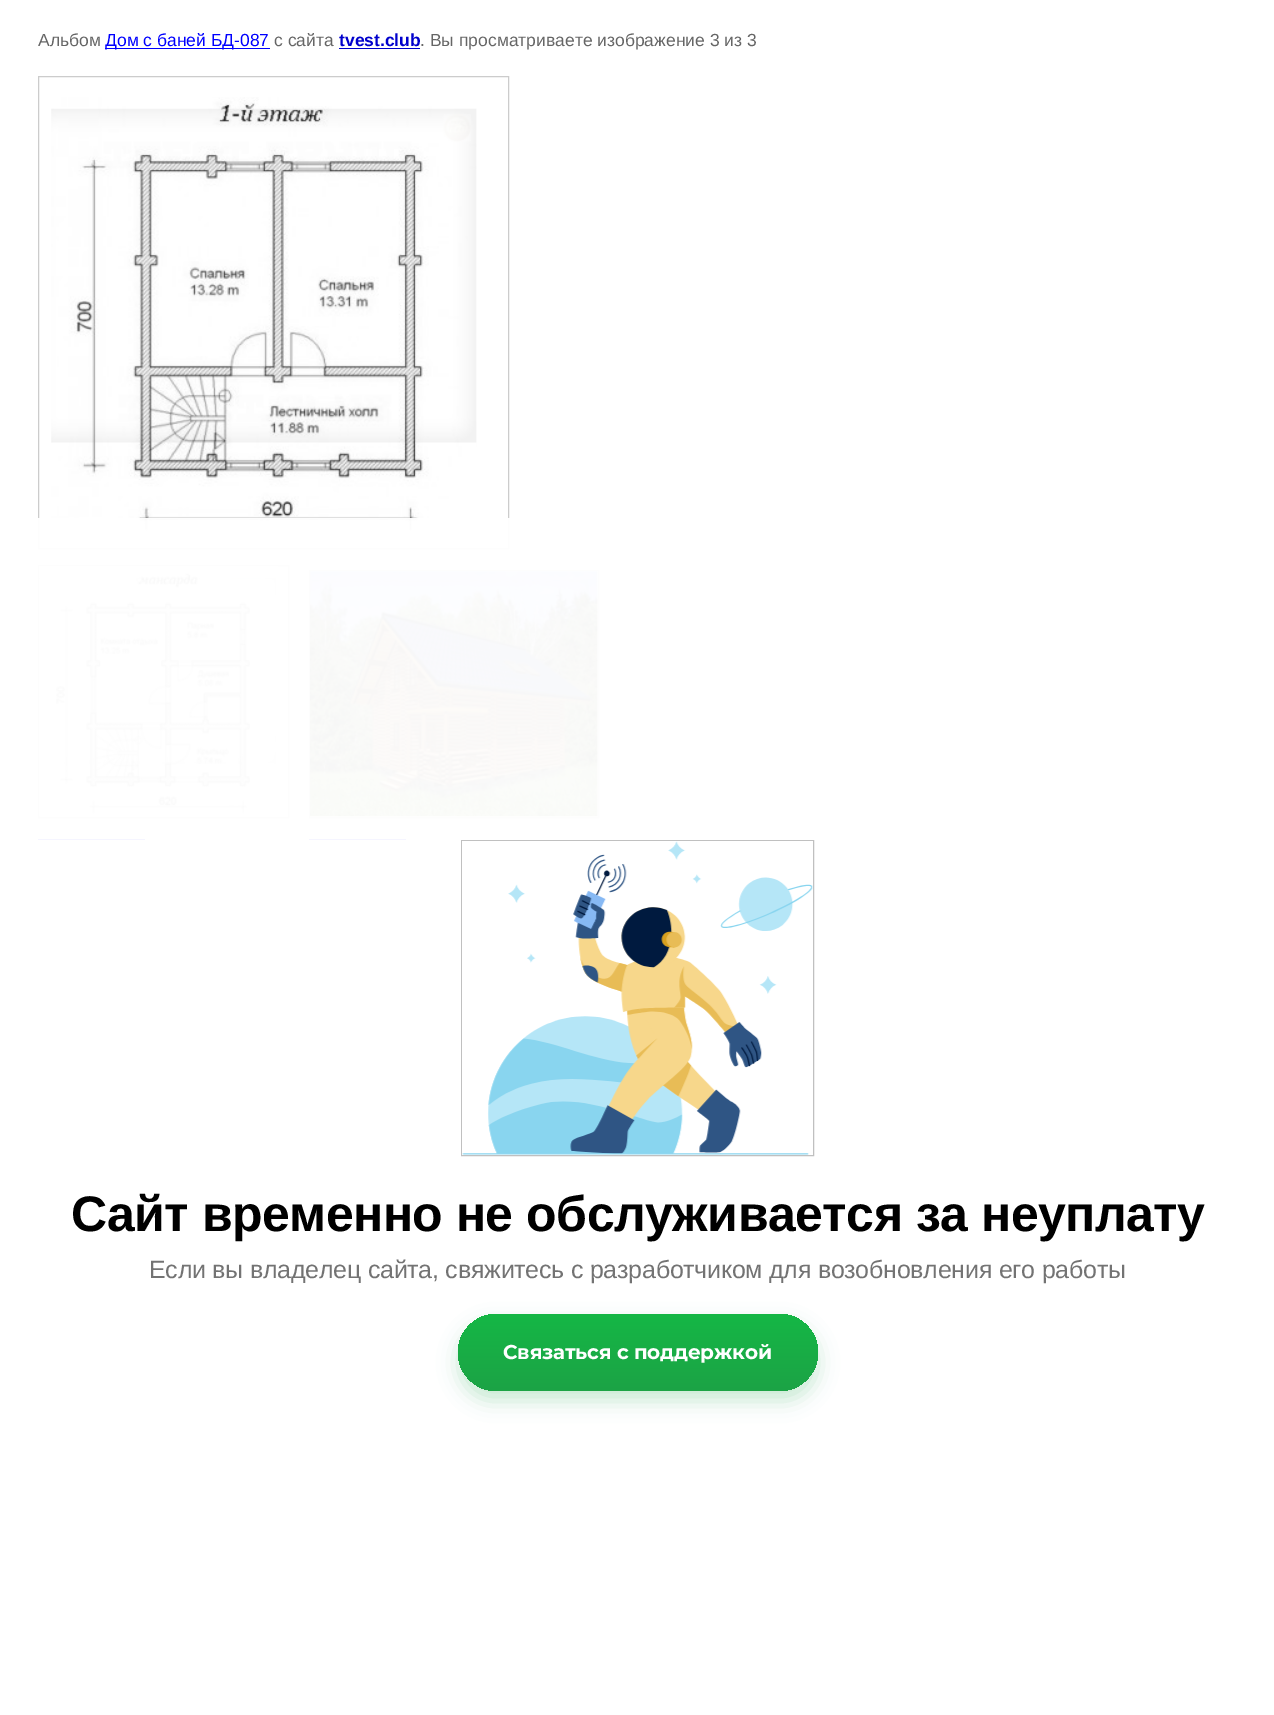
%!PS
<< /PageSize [1274 1715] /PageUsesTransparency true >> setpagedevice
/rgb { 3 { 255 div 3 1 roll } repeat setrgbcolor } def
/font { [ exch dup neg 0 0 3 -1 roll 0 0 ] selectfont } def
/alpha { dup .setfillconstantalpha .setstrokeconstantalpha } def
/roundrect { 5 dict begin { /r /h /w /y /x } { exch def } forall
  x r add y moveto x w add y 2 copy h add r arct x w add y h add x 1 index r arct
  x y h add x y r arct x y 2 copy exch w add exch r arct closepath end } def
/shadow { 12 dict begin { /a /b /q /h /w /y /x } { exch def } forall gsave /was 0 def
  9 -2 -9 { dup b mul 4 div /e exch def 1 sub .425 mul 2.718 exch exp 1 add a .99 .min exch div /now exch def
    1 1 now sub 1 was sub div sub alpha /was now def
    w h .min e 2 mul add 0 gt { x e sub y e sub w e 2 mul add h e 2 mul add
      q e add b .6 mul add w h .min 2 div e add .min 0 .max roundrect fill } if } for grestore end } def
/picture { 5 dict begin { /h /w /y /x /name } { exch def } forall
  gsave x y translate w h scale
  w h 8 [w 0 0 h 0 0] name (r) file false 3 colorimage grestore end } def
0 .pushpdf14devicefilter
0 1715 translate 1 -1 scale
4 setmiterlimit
255 255 255 rgb
0 0 1274 1715 rectfill
0 0 255 rgb
105 48 165 1 rectfill
0 0 204 rgb
339 48 81 1 rectfill
204 204 204 rgb
38.5 76.5 470 472 rectstroke
(img/1.rgb) 51 97 426 438 picture
192 192 192 rgb
38.5 565.5 250 252 rectstroke
(img/2.rgb) 38 566 240 250 picture
0 0 255 rgb
38 839 107 1 rectfill
192 192 192 rgb
309.5 570.5 289 247 rectstroke
(img/3.rgb) 310 571 288 246 picture
0 0 255 rgb
309 839 97 1 rectfill
0.96 alpha
255 255 255 rgb
40 518 moveto 1235 518 lineto 1246 518 1255 527 1255 538 curveto 1255 1715 lineto 20 1715 lineto 20 538 lineto 20 527 29 518 40 518 curveto closepath fill
1 alpha
192 192 192 rgb
461.5 840.5 352 315 rectstroke
(img/4.rgb) 462 841 351 314 picture
28 163 69 rgb
458 1324 360 77 38.5 10 0.24 shadow
gsave 458 1314 360 77 38.5 roundrect clip newpath
<< /ShadingType 2 /ColorSpace /DeviceRGB /Coords [638 1314 638 1391] /Extend [true true] /Function << /FunctionType 2 /Domain [0 1] /C0 [0.082 0.718 0.275] /C1 [0.11 0.639 0.271] /N 1 >> >> shfill grestore
/LiberationSans-Regular 17.5 font
102 102 102 rgb
38 46 moveto (Альбом) show
0 0 255 rgb
105 46 moveto (Дом с баней БД-087) show
102 102 102 rgb
274 46 moveto (с сайта) show
/LiberationSans-Bold 17.5 font
0 0 204 rgb
339 46 moveto (tvest.club) show
/LiberationSans-Regular 17.5 font
102 102 102 rgb
420 46 moveto (. Вы просматриваете изображение 3 из 3) show
/LiberationSans-Bold 50 font
0 0 0 rgb
71 1231 moveto -0.5 0 (Сайт временно не обслуживается за неуплату) ashow
/LiberationSans-Regular 25 font
115 115 115 rgb
149 1278 moveto -0.25 0 (Если вы владелец сайта, свяжитесь с разработчиком для возобновления его работы) ashow
/Montserrat-Bold 20 font
255 255 255 rgb
503 1359 moveto -0.2 0 (Связаться с поддержкой) ashow
.poppdf14devicefilter showpage
